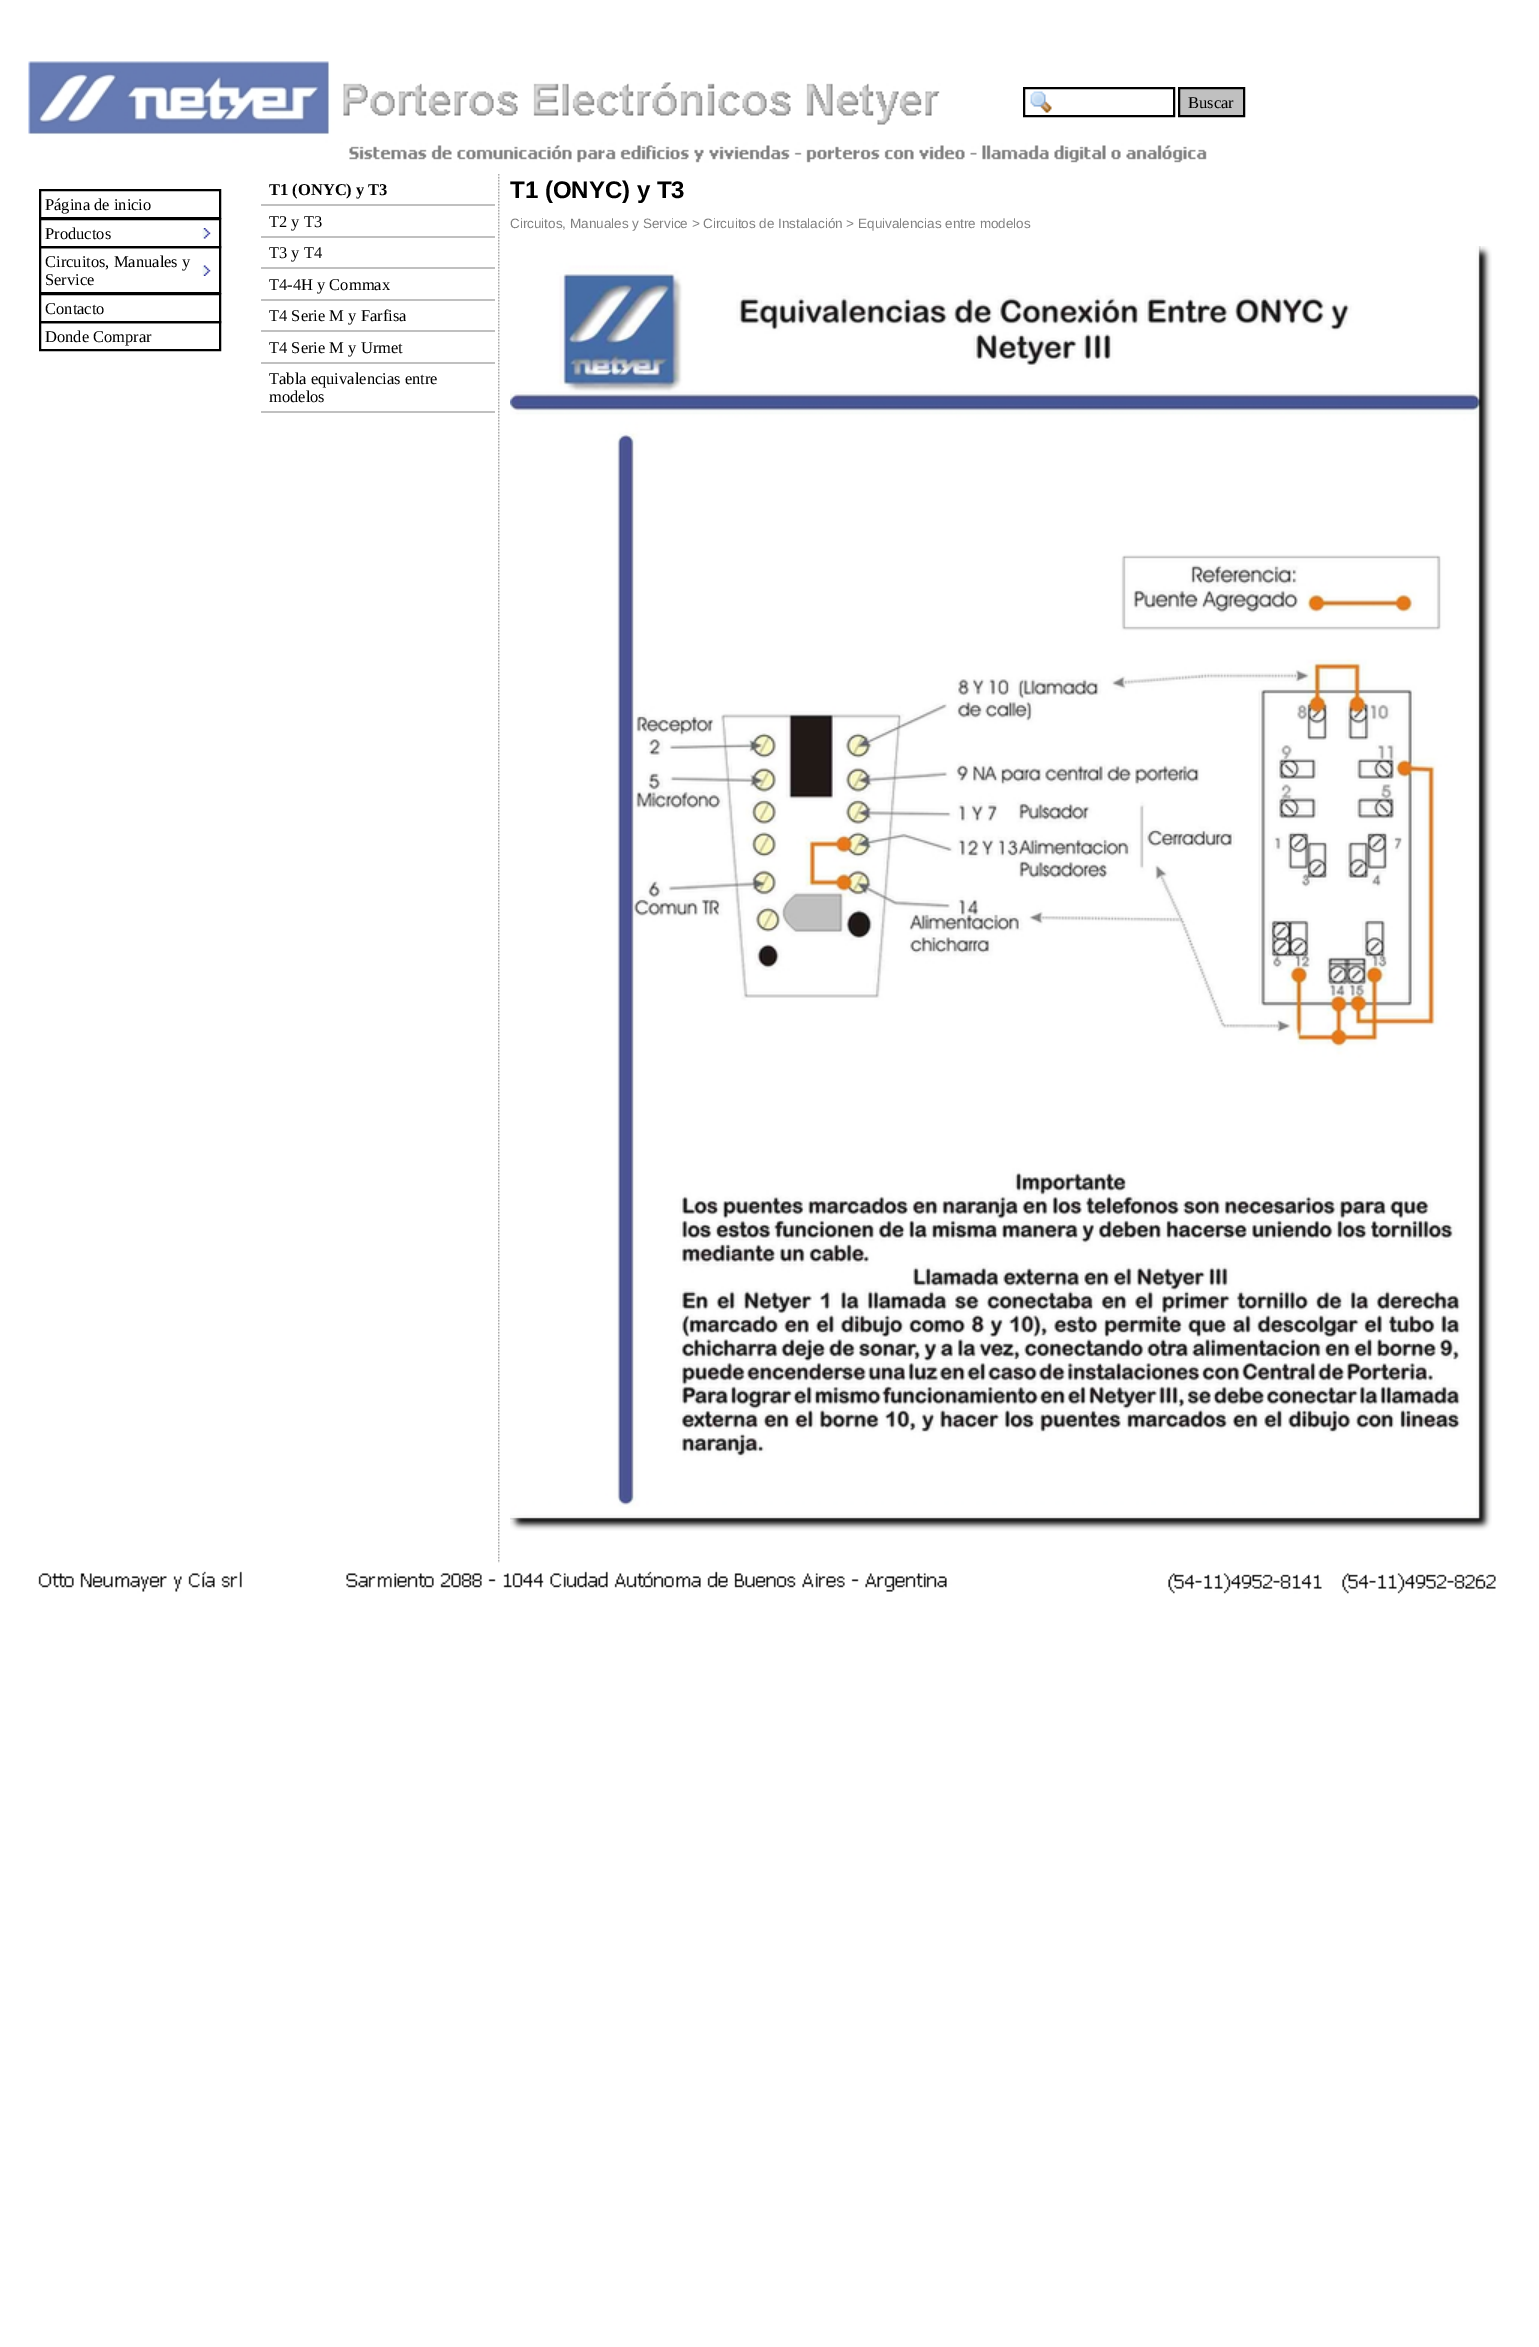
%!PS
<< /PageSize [1539 2347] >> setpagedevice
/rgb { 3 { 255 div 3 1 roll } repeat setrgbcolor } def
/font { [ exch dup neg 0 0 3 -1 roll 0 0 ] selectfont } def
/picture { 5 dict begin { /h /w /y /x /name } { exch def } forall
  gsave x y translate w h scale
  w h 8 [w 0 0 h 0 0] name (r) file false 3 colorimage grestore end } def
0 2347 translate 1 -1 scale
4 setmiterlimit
255 255 255 rgb
0 0 1539 2347 rectfill
(img/1.rgb) 28 61 1179 102 picture
(img/2.rgb) 1030 91 22 22 picture
0 0 0 rgb
2 setlinewidth
1024 88 150 28 rectstroke
192 192 192 rgb
1179 88 moveto 1244 88 lineto 1244 116 lineto 1179 116 lineto closepath gsave fill grestore
0 0 0 rgb
stroke
40 190 180 28 rectstroke
40 219 180 28 rectstroke
(img/3.rgb) 202 228 9 11 picture
40 247 180 46 rectstroke
(img/4.rgb) 202 265 9 11 picture
40 294 180 28 rectstroke
40 322 180 28 rectstroke
[
  [261 204 234 2 192 192 192]
  [261 236 234 2 192 192 192]
  [261 267 234 2 192 192 192]
  [261 299 234 2 192 192 192]
  [261 330 234 2 192 192 192]
  [261 362 234 2 192 192 192]
  [261 411 234 2 192 192 192]
] { aload pop rgb rectfill } forall
(img/5.rgb) 498 174 2 1389 picture
(img/6.rgb) 510 246 982 1285 picture
(img/7.rgb) 38 1571 1458 23 picture
/LiberationSerif-Regular 16.5 font
0 0 0 rgb
[
  [(Buscar) 1188 108]
  [(Página de inicio) 45 210]
  [(Productos) 45 239]
  [(Circuitos, Manuales y) 45 267]
  [(Service) 45 285]
  [(Contacto) 45 314]
  [(Donde Comprar) 45 342]
] { aload pop moveto show } forall
/LiberationSerif-Bold 16.5 font
269 195 moveto (T1 \(ONYC\) y T3) show
/LiberationSerif-Regular 16.5 font
[
  [(T2 y T3) 269 227]
  [(T3 y T4) 269 258]
  [(T4-4H y Commax) 269 290]
  [(T4 Serie M y Farfisa) 269 321]
  [(T4 Serie M y Urmet) 269 353]
  [(Tabla equivalencias entre) 269 384]
  [(modelos) 269 402]
] { aload pop moveto show } forall
/LiberationSans-Bold 24 font
510 198 moveto (T1 \(ONYC\) y T3) show
/LiberationSans-Regular 13.5 font
128 128 128 rgb
510 228 moveto (Circuitos, Manuales y Service > Circuitos de Instalación > Equivalencias entre modelos) show
showpage
